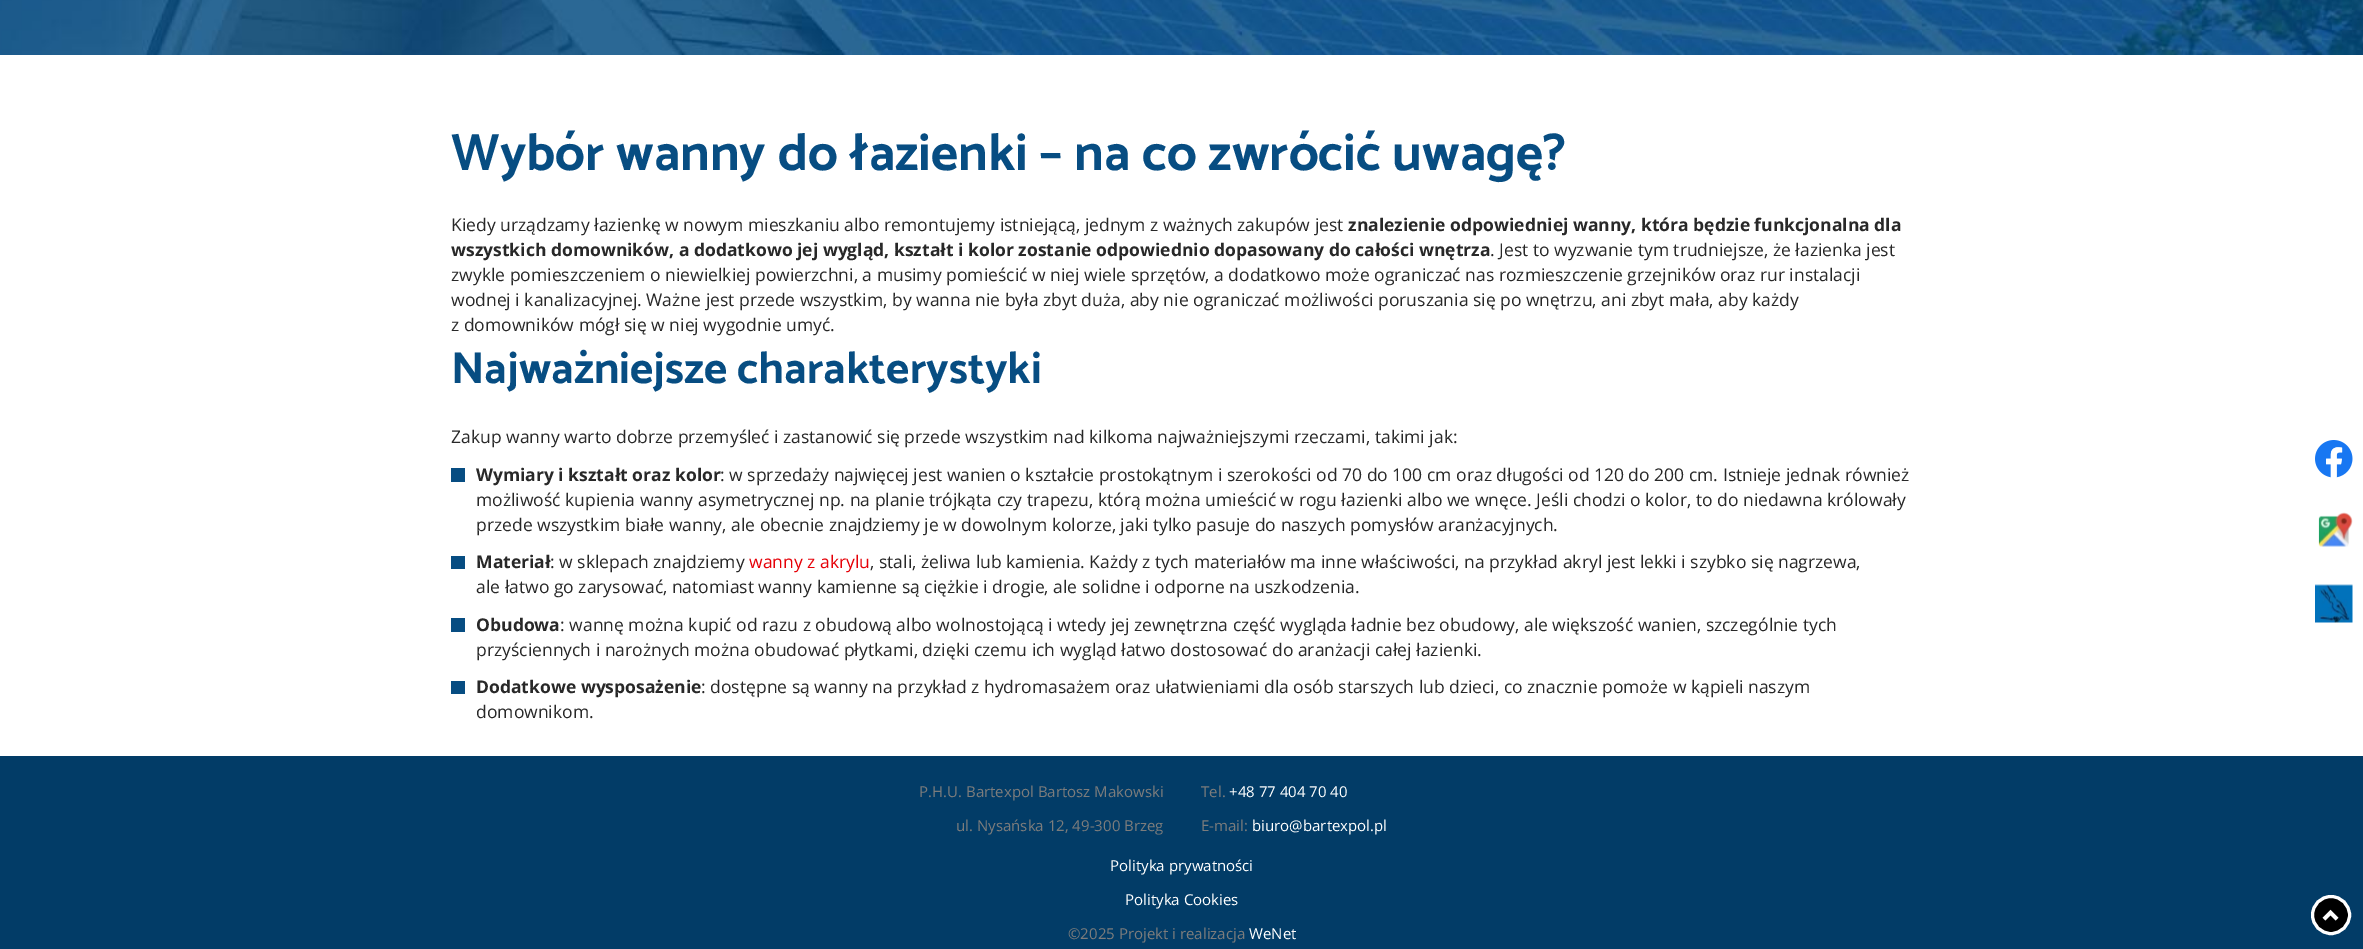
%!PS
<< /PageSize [2363 949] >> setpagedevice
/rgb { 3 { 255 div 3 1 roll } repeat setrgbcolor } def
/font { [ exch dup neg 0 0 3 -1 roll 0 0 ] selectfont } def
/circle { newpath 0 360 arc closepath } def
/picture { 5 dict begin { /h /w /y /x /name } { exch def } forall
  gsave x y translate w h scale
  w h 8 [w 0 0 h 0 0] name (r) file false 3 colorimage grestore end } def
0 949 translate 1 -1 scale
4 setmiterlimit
255 255 255 rgb
0 0 2363 949 rectfill
(img/1.rgb) 0 0 2363 55 picture
[
  [451 468 14 14 7 77 130]
  [451 556 14 13 7 77 130]
  [451 618 14 14 7 77 130]
  [451 681 14 13 7 77 130]
] { aload pop rgb rectfill } forall
(img/2.rgb) 2315 440 38 38 picture
(img/3.rgb) 2318 512 35 35 picture
(img/4.rgb) 2315 584 38 39 picture
2 60 103 rgb
0 756 2363 193 rectfill
0 0 0 rgb
2331 915 18.5 circle gsave fill grestore
255 255 255 rgb
3 setlinewidth
stroke
(img/5.rgb) 2322 909 17 12 picture
/Catamaran-Bold 52.5 font
7 77 130 rgb
451 170 moveto (Wybór wanny do łazienki – na co zwrócić uwagę?) show
/OpenSans-Regular 17.5 font
40 40 40 rgb
451 231 moveto (Kiedy urządzamy łazienkę w nowym mieszkaniu albo remontujemy istniejącą, jednym z ważnych zakupów jest) show
/OpenSans-Bold 17.5 font
1348 231 moveto (znalezienie odpowiedniej wanny, która będzie funkcjonalna dla) show
451 256 moveto (wszystkich domowników, a dodatkowo jej wygląd, kształt i kolor zostanie odpowiednio dopasowany do całości wnętrza) show
/OpenSans-Regular 17.5 font
[
  [(. Jest to wyzwanie tym trudniejsze, że łazienka jest) 1490 256]
  [(zwykle pomieszczeniem o niewielkiej powierzchni, a musimy pomieścić w niej wiele sprzętów, a dodatkowo może ograniczać nas rozmieszczenie grzejników oraz rur instalacji) 451 281]
  [(wodnej i kanalizacyjnej. Ważne jest przede wszystkim, by wanna nie była zbyt duża, aby nie ograniczać możliwości poruszania się po wnętrzu, ani zbyt mała, aby każdy) 451 306]
  [(z domowników mógł się w niej wygodnie umyć.) 451 331]
] { aload pop moveto show } forall
/Catamaran-Bold 45 font
7 77 130 rgb
451 383 moveto (Najważniejsze charakterystyki) show
/OpenSans-Regular 17.5 font
40 40 40 rgb
451 443 moveto (Zakup wanny warto dobrze przemyśleć i zastanowić się przede wszystkim nad kilkoma najważniejszymi rzeczami, takimi jak:) show
/OpenSans-Bold 17.5 font
476 481 moveto (Wymiary i kształt oraz kolor) show
/OpenSans-Regular 17.5 font
[
  [(: w sprzedaży najwięcej jest wanien o kształcie prostokątnym i szerokości od 70 do 100 cm oraz długości od 120 do 200 cm. Istnieje jednak również) 720 481]
  [(możliwość kupienia wanny asymetrycznej np. na planie trójkąta czy trapezu, którą można umieścić w rogu łazienki albo we wnęce. Jeśli chodzi o kolor, to do niedawna królowały) 476 506]
  [(przede wszystkim białe wanny, ale obecnie znajdziemy je w dowolnym kolorze, jaki tylko pasuje do naszych pomysłów aranżacyjnych.) 476 531]
] { aload pop moveto show } forall
/OpenSans-Bold 17.5 font
476 568 moveto (Materiał) show
/OpenSans-Regular 17.5 font
550 568 moveto (: w sklepach znajdziemy) show
230 0 7 rgb
749 568 moveto (wanny z akrylu) show
40 40 40 rgb
870 568 moveto (, stali, żeliwa lub kamienia. Każdy z tych materiałów ma inne właściwości, na przykład akryl jest lekki i szybko się nagrzewa,) show
476 593 moveto (ale łatwo go zarysować, natomiast wanny kamienne są ciężkie i drogie, ale solidne i odporne na uszkodzenia.) show
/OpenSans-Bold 17.5 font
476 631 moveto (Obudowa) show
/OpenSans-Regular 17.5 font
560 631 moveto (: wannę można kupić od razu z obudową albo wolnostojącą i wtedy jej zewnętrzna część wygląda ładnie bez obudowy, ale większość wanien, szczególnie tych) show
476 656 moveto (przyściennych i narożnych można obudować płytkami, dzięki czemu ich wygląd łatwo dostosować do aranżacji całej łazienki.) show
/OpenSans-Bold 17.5 font
476 693 moveto (Dodatkowe wysposażenie) show
/OpenSans-Regular 17.5 font
701 693 moveto (: dostępne są wanny na przykład z hydromasażem oraz ułatwieniami dla osób starszych lub dzieci, co znacznie pomoże w kąpieli naszym) show
476 718 moveto (domownikom.) show
/OpenSans-Regular 15 font
124 124 124 rgb
[
  [(P.H.U. Bartexpol Bartosz Makowski) 919 797]
  [(ul. Nysańska 12, 49-300 Brzeg) 956 831]
  [(Tel.) 1201 797]
] { aload pop moveto show } forall
255 255 255 rgb
1229 797 moveto (+48 77 404 70 40) show
124 124 124 rgb
1201 831 moveto (E-mail:) show
255 255 255 rgb
[
  [(biuro@bartexpol.pl) 1252 831]
  [(Polityka prywatności) 1110 871]
  [(Polityka Cookies) 1125 905]
] { aload pop moveto show } forall
124 124 124 rgb
1068 939 moveto (©2025 Projekt i realizacja) show
255 255 255 rgb
1249 939 moveto (WeNet) show
showpage
